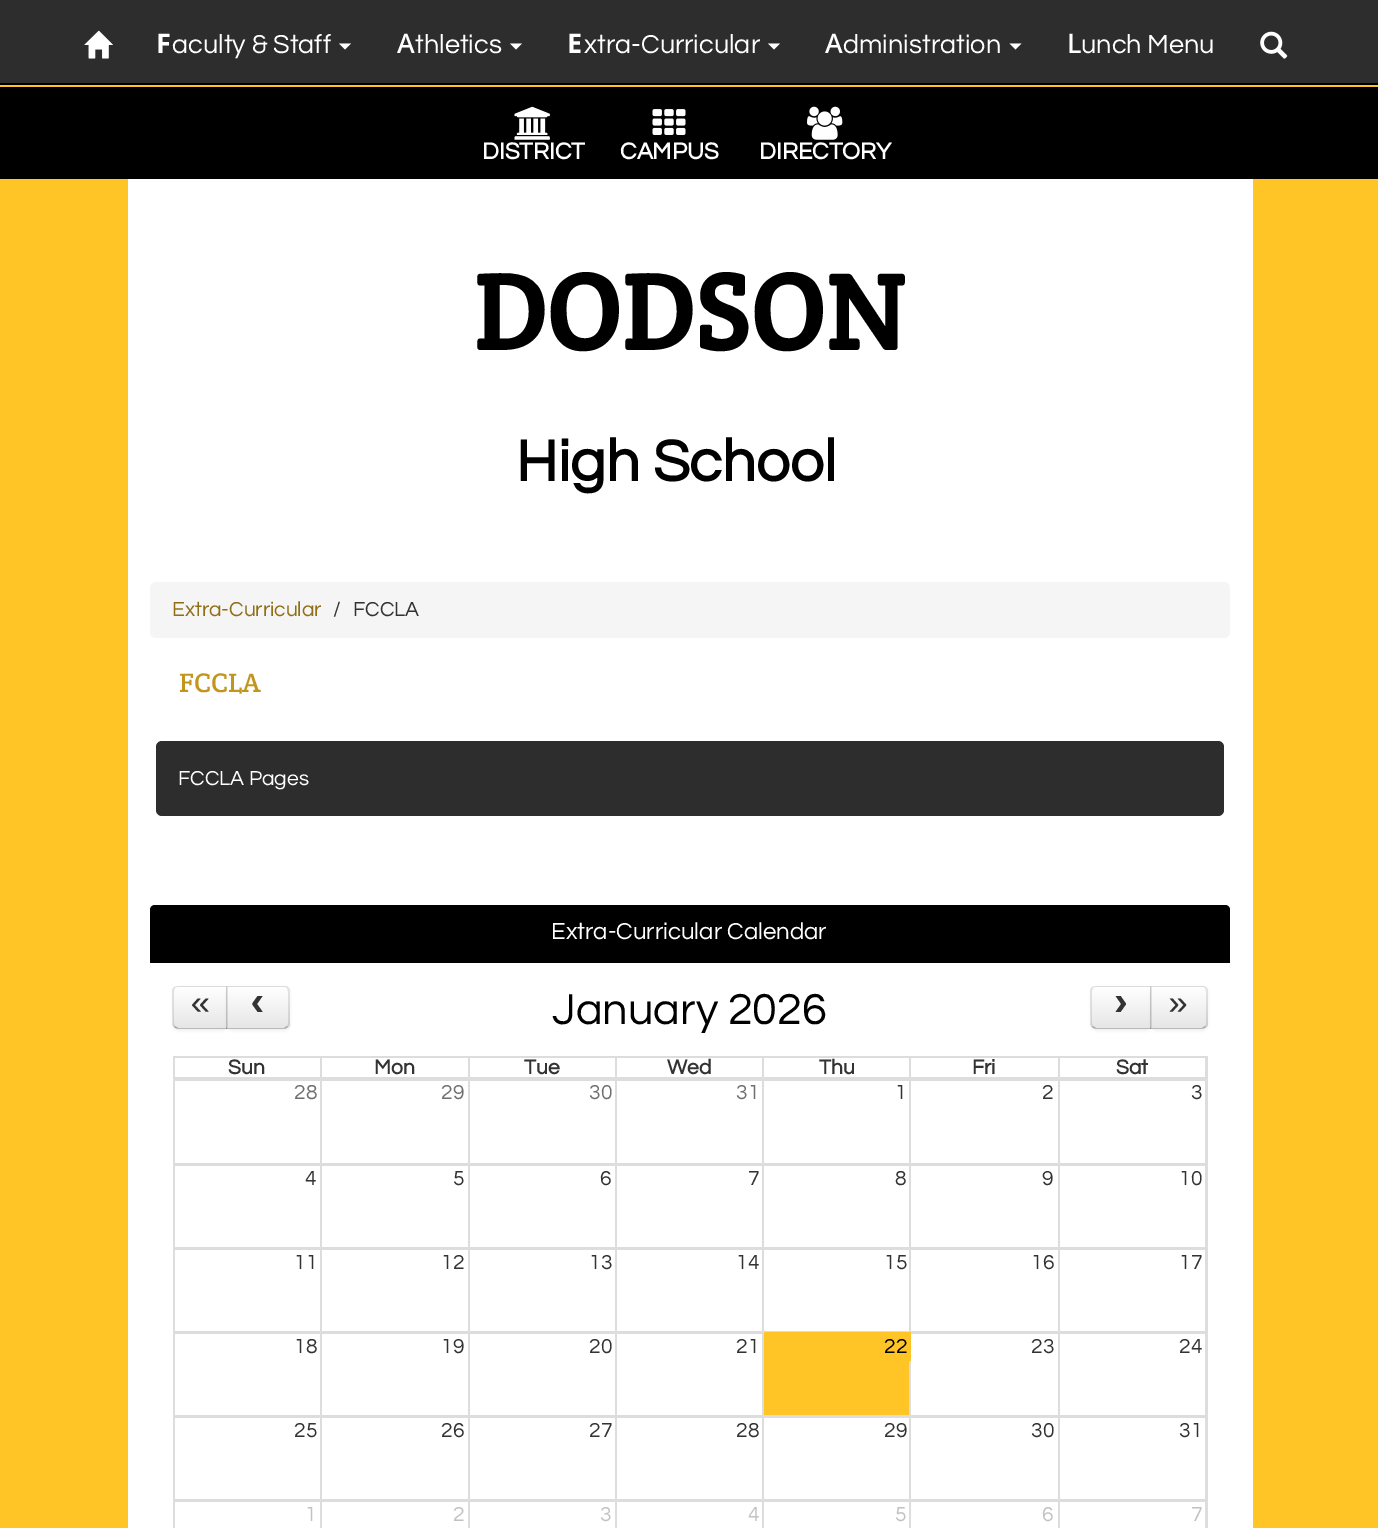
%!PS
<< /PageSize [1378 1528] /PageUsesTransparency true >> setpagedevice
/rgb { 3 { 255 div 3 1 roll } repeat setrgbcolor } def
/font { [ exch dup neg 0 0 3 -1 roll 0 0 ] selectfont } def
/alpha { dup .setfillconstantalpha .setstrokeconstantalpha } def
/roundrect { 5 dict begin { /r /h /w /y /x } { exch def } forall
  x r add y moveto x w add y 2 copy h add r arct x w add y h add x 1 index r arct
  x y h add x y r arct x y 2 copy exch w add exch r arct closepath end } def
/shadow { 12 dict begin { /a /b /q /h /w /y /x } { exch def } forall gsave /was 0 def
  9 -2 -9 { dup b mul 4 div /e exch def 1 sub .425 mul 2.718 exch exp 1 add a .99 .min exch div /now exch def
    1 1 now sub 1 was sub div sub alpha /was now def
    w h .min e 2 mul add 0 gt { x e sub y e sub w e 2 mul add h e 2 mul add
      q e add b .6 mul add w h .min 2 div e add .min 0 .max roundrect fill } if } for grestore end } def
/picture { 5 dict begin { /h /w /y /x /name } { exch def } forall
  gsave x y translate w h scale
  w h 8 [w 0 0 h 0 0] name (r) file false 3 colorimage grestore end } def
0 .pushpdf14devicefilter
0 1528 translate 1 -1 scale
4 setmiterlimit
255 196 38 rgb
0 0 1378 1528 rectfill
45 45 46 rgb
0 0 1378 83 rectfill
0 0 0 rgb
0 83 1378 2 rectfill
(img/1.rgb) 84 30 29 29 picture
255 255 255 rgb
339 43.5 moveto 351 43.5 lineto 345 49.5 lineto closepath fill
510 43.5 moveto 522 43.5 lineto 516 49.5 lineto closepath fill
768 43.5 moveto 780 43.5 lineto 774 49.5 lineto closepath fill
1009.5 43.5 moveto 1021.5 43.5 lineto 1015.5 49.5 lineto closepath fill
(img/2.rgb) 1260 31 28 28 picture
0 0 0 rgb
0 87 1378 92 rectfill
(img/3.rgb) 514 106 36 34 picture
(img/4.rgb) 652 109 34 26 picture
(img/5.rgb) 807 106 36 34 picture
255 255 255 rgb
128 179 1125 1349 rectfill
245 245 245 rgb
150 582 1080 56 6 roundrect fill
45 45 46 rgb
156 741 1068 75 6 roundrect fill
0 0 0 rgb
155 905 moveto 1225 905 lineto 1228 905 1230 907 1230 910 curveto 1230 963 lineto 150 963 lineto 150 910 lineto 150 907 152 905 155 905 curveto closepath fill
173 987 55 44 6 1.5 0.05 shadow
245 245 245 rgb
179 986 moveto 228 986 lineto 228 1029 lineto 179 1029 lineto 175.5 1029 173 1026.5 173 1023 curveto 173 992 lineto 173 988.5 175.5 986 179 986 curveto closepath fill
gsave
179 986 moveto 228 986 lineto 228 1029 lineto 179 1029 lineto 175.5 1029 173 1026.5 173 1023 curveto 173 992 lineto 173 988.5 175.5 986 179 986 curveto closepath clip newpath
gsave 173 987 moveto 227 987 lineto 227 1028 lineto 173 1028 lineto closepath clip newpath
<< /ShadingType 2 /ColorSpace /DeviceRGB /Coords [200 987 200 1028] /Extend [true true] /Function << /FunctionType 2 /Domain [0 1] /C0 [1 1 1] /C1 [0.902 0.902 0.902] /N 1 >> >> shfill grestore
grestore
0.2 alpha
255 255 255 rgb
178 988 moveto 226 988 lineto 226 1028 lineto 227 1028 lineto 227 987 lineto 179 987 lineto 176 987 174 989 174 992 curveto 174 993 lineto 174 991 176 988 178 988 curveto closepath fill
0.1 alpha
0 0 0 rgb
178 986 moveto 174 987 lineto 175 988 lineto 177 987 lineto 226 987 lineto 226 988 lineto 228 986 lineto closepath fill
228 1029 moveto 228 986 lineto 226 988 lineto 226 1027 lineto closepath fill
0.25 alpha
228 1029 moveto 226 1027 lineto 226 1028 lineto 178 1028 lineto 175 1026 lineto 174 1027 lineto 175 1028 177 1029 178 1029 curveto closepath fill
0.1 alpha
172 989 moveto 174 987 lineto 175 988 lineto 175 989 174 990 174 992 curveto 174 1023 lineto 174 1024 174 1025 175 1026 curveto 174 1027 lineto 172 1025 lineto closepath fill
1 alpha
227 987 63 44 6 1.5 0.05 shadow
245 245 245 rgb
227 986 moveto 284 986 lineto 287.5 986 290 988.5 290 992 curveto 290 1023 lineto 290 1026.5 287.5 1029 284 1029 curveto 227 1029 lineto closepath fill
gsave
227 986 moveto 284 986 lineto 287.5 986 290 988.5 290 992 curveto 290 1023 lineto 290 1026.5 287.5 1029 284 1029 curveto 227 1029 lineto closepath clip newpath
gsave 227 987 moveto 290 987 lineto 290 1028 lineto 227 1028 lineto closepath clip newpath
<< /ShadingType 2 /ColorSpace /DeviceRGB /Coords [258 987 258 1028] /Extend [true true] /Function << /FunctionType 2 /Domain [0 1] /C0 [1 1 1] /C1 [0.902 0.902 0.902] /N 1 >> >> shfill grestore
grestore
0.1 alpha
0 0 0 rgb
228 987 moveto 285 987 lineto 287 988 lineto 288 987 lineto 287 986 285 986 284 986 curveto 227 986 lineto closepath fill
288 987 moveto 290 989 lineto 290 1025 lineto 288 1027 lineto 287 1026 lineto 288 1025 288 1024 288 1023 curveto 288 992 lineto 288 990 287 989 287 988 curveto closepath fill
0.25 alpha
226 1029 moveto 284 1029 lineto 285 1029 287 1028 288 1027 curveto 287 1026 lineto 284 1028 lineto 228 1028 lineto closepath fill
0.1 alpha
228 987 moveto 226 986 lineto 226 1029 lineto 228 1028 lineto closepath fill
1 alpha
1091 987 61 44 6 1.5 0.05 shadow
245 245 245 rgb
1097 986 moveto 1152 986 lineto 1152 1029 lineto 1097 1029 lineto 1093.5 1029 1091 1026.5 1091 1023 curveto 1091 992 lineto 1091 988.5 1093.5 986 1097 986 curveto closepath fill
gsave
1097 986 moveto 1152 986 lineto 1152 1029 lineto 1097 1029 lineto 1093.5 1029 1091 1026.5 1091 1023 curveto 1091 992 lineto 1091 988.5 1093.5 986 1097 986 curveto closepath clip newpath
gsave 1091 987 moveto 1151 987 lineto 1151 1028 lineto 1091 1028 lineto closepath clip newpath
<< /ShadingType 2 /ColorSpace /DeviceRGB /Coords [1121 987 1121 1028] /Extend [true true] /Function << /FunctionType 2 /Domain [0 1] /C0 [1 1 1] /C1 [0.902 0.902 0.902] /N 1 >> >> shfill grestore
grestore
0.2 alpha
255 255 255 rgb
1096 988 moveto 1150 988 lineto 1150 1028 lineto 1151 1028 lineto 1151 987 lineto 1097 987 lineto 1094 987 1092 989 1092 992 curveto 1092 993 lineto 1092 991 1094 988 1096 988 curveto closepath fill
0.1 alpha
0 0 0 rgb
1096 986 moveto 1092 987 lineto 1093 988 lineto 1095 987 lineto 1150 987 lineto 1150 988 lineto 1152 986 lineto closepath fill
1152 1029 moveto 1152 986 lineto 1150 988 lineto 1150 1027 lineto closepath fill
0.25 alpha
1152 1029 moveto 1150 1027 lineto 1150 1028 lineto 1096 1028 lineto 1093 1026 lineto 1092 1027 lineto 1093 1028 1095 1029 1096 1029 curveto closepath fill
0.1 alpha
1090 989 moveto 1092 987 lineto 1093 988 lineto 1093 989 1092 990 1092 992 curveto 1092 1023 lineto 1092 1024 1092 1025 1093 1026 curveto 1092 1027 lineto 1090 1025 lineto closepath fill
1 alpha
1151 987 57 44 6 1.5 0.05 shadow
245 245 245 rgb
1151 986 moveto 1202 986 lineto 1205.5 986 1208 988.5 1208 992 curveto 1208 1023 lineto 1208 1026.5 1205.5 1029 1202 1029 curveto 1151 1029 lineto closepath fill
gsave
1151 986 moveto 1202 986 lineto 1205.5 986 1208 988.5 1208 992 curveto 1208 1023 lineto 1208 1026.5 1205.5 1029 1202 1029 curveto 1151 1029 lineto closepath clip newpath
gsave 1151 987 moveto 1208 987 lineto 1208 1028 lineto 1151 1028 lineto closepath clip newpath
<< /ShadingType 2 /ColorSpace /DeviceRGB /Coords [1179 987 1179 1028] /Extend [true true] /Function << /FunctionType 2 /Domain [0 1] /C0 [1 1 1] /C1 [0.902 0.902 0.902] /N 1 >> >> shfill grestore
grestore
0.1 alpha
0 0 0 rgb
1152 987 moveto 1203 987 lineto 1205 988 lineto 1206 987 lineto 1205 986 1203 986 1202 986 curveto 1151 986 lineto closepath fill
1206 987 moveto 1208 989 lineto 1208 1025 lineto 1206 1027 lineto 1205 1026 lineto 1206 1025 1206 1024 1206 1023 curveto 1206 992 lineto 1206 990 1205 989 1205 988 curveto closepath fill
0.25 alpha
1150 1029 moveto 1202 1029 lineto 1203 1029 1205 1028 1206 1027 curveto 1205 1026 lineto 1202 1028 lineto 1152 1028 lineto closepath fill
0.1 alpha
1152 987 moveto 1150 986 lineto 1150 1029 lineto 1152 1028 lineto closepath fill
1 alpha
[
  [173 1056 1035 2 221 221 221]
  [173 1079 1035 2 221 221 221]
  [1206 1079 2 449 221 221 221]
  [1206 1056 2 24 221 221 221]
  [173 1079 2 449 221 221 221]
  [173 1056 2 24 221 221 221]
  [1205 1056 1 23 221 221 221]
  [1058 1077 148 2 221 221 221]
  [1058 1056 2 23 221 221 221]
  [909 1077 150 2 221 221 221]
  [909 1056 2 23 221 221 221]
  [762 1077 149 2 221 221 221]
  [762 1056 2 23 221 221 221]
  [615 1077 149 2 221 221 221]
  [615 1056 2 23 221 221 221]
  [468 1077 149 2 221 221 221]
  [468 1056 2 23 221 221 221]
  [320 1077 150 2 221 221 221]
  [320 1056 2 23 221 221 221]
  [173 1077 148 2 221 221 221]
  [1205 1080 1 84 221 221 221]
  [1058 1163 148 3 221 221 221]
  [1058 1080 2 84 221 221 221]
  [909 1163 150 1 221 221 221]
  [909 1080 2 84 221 221 221]
  [762 1163 149 1 221 221 221]
  [762 1080 2 84 221 221 221]
  [615 1163 149 1 221 221 221]
  [615 1080 2 84 221 221 221]
  [468 1163 149 1 221 221 221]
  [468 1080 2 84 221 221 221]
  [320 1163 150 1 221 221 221]
  [320 1080 2 84 221 221 221]
  [174 1163 147 1 221 221 221]
  [1205 1164 1 84 221 221 221]
  [1058 1247 148 3 221 221 221]
  [1058 1164 2 84 221 221 221]
  [909 1164 150 2 221 221 221]
  [909 1247 150 1 221 221 221]
  [909 1164 2 84 221 221 221]
  [762 1164 149 2 221 221 221]
  [762 1247 149 1 221 221 221]
  [762 1164 2 84 221 221 221]
  [615 1164 149 2 221 221 221]
  [615 1247 149 1 221 221 221]
  [615 1164 2 84 221 221 221]
  [468 1164 149 2 221 221 221]
  [468 1247 149 1 221 221 221]
  [468 1164 2 84 221 221 221]
  [320 1164 150 2 221 221 221]
  [320 1247 150 1 221 221 221]
  [320 1164 2 84 221 221 221]
  [174 1164 147 2 221 221 221]
  [174 1247 147 1 221 221 221]
  [1205 1248 1 84 221 221 221]
  [1058 1331 148 3 221 221 221]
  [1058 1248 2 84 221 221 221]
  [909 1248 150 2 221 221 221]
  [909 1331 150 1 221 221 221]
  [909 1248 2 84 221 221 221]
  [762 1248 149 2 221 221 221]
  [762 1331 149 1 221 221 221]
  [762 1248 2 84 221 221 221]
  [615 1248 149 2 221 221 221]
  [615 1331 149 1 221 221 221]
  [615 1248 2 84 221 221 221]
  [468 1248 149 2 221 221 221]
  [468 1331 149 1 221 221 221]
  [468 1248 2 84 221 221 221]
  [320 1248 150 2 221 221 221]
  [320 1331 150 1 221 221 221]
  [320 1248 2 84 221 221 221]
  [174 1248 147 2 221 221 221]
  [174 1331 147 1 221 221 221]
  [1205 1332 1 84 221 221 221]
  [1058 1415 148 3 221 221 221]
  [1058 1332 2 84 221 221 221]
  [909 1415 150 1 221 221 221]
  [909 1361 2 55 221 221 221]
  [762 1415 149 1 221 221 221]
  [762 1332 2 84 221 221 221]
  [615 1332 149 2 221 221 221]
  [615 1415 149 1 221 221 221]
  [615 1332 2 84 221 221 221]
  [468 1332 149 2 221 221 221]
  [468 1415 149 1 221 221 221]
  [468 1332 2 84 221 221 221]
  [320 1332 150 2 221 221 221]
  [320 1415 150 1 221 221 221]
  [320 1332 2 84 221 221 221]
  [174 1332 147 2 221 221 221]
  [174 1415 147 1 221 221 221]
  [764 1361 145 54 255 196 38]
  [909 1332 150 2 221 221 221]
  [764 1332 147 29 255 196 38]
  [1205 1416 1 84 221 221 221]
  [1058 1499 148 3 221 221 221]
  [1058 1416 2 112 221 221 221]
  [909 1416 150 2 221 221 221]
  [909 1499 150 3 221 221 221]
  [909 1416 2 112 221 221 221]
  [762 1416 149 2 221 221 221]
  [762 1499 149 3 221 221 221]
  [762 1416 2 112 221 221 221]
  [615 1416 149 2 221 221 221]
  [615 1499 149 3 221 221 221]
  [615 1416 2 112 221 221 221]
  [468 1416 149 2 221 221 221]
  [468 1499 149 3 221 221 221]
  [468 1416 2 112 221 221 221]
  [320 1416 150 2 221 221 221]
  [320 1499 150 3 221 221 221]
  [320 1416 2 112 221 221 221]
  [174 1416 147 2 221 221 221]
  [174 1499 147 3 221 221 221]
  [1205 1500 1 28 221 221 221]
] { aload pop rgb rectfill } forall
/NotoSans-Bold 27 font
255 255 255 rgb
156 53 moveto (F) show
/Questrial-Regular 27 font
172 53 moveto (aculty & Staff) show
/NotoSans-Medium 27 font
397 53 moveto (A) show
/Questrial-Regular 27 font
415 53 moveto (thletics) show
/NotoSans-Bold 27 font
567 53 moveto (E) show
/Questrial-Regular 27 font
584 53 moveto (xtra-Curricular) show
/NotoSans-Medium 27 font
825 53 moveto (A) show
/Questrial-Regular 27 font
843 53 moveto (dministration) show
/NotoSans-Medium 27 font
1067 53 moveto (L) show
/Questrial-Regular 27 font
1081 53 moveto (unch Menu) show
/Questrial-Bold 24 font
[
  [(DISTRICT) 482 159]
  [(CAMPUS) 620 159]
  [(DIRECTORY) 759 159]
] { aload pop moveto show } forall
/CreteRound-Bold 108 font
0 0 0 rgb
473 350 moveto (DODSON) show
/Questrial-Bold 60 font
516 481 moveto (High School) show
/Questrial-Regular 21 font
143 110 21 rgb
172 616 moveto (Extra-Curricular) show
51 51 51 rgb
333 616 moveto (/) show
353 616 moveto (FCCLA) show
/CreteRound-Regular 27 font
194 149 29 rgb
179 692 moveto (FCCLA) show
/Questrial-Regular 21 font
255 255 255 rgb
178 785 moveto (FCCLA Pages) show
/Questrial-Regular 24 font
551 939 moveto (Extra-Curricular Calendar) show
/LiberationMono-Regular 34 font
51 51 51 rgb
190 1014 moveto («) show
gsave
246 996 24 21 rectclip
/LiberationMono-Bold 42 font
245 1015 moveto (‹) show
grestore
/Questrial-Regular 45 font
0 0 0 rgb
552 1024 moveto (January 2026) show
gsave
1109 996 25 21 rectclip
/LiberationMono-Bold 42 font
51 51 51 rgb
1108 1015 moveto (›) show
grestore
/LiberationMono-Regular 34 font
51 51 51 rgb
1168 1014 moveto (») show
/Questrial-Bold 21 font
[
  [(Sun) 228 1074]
  [(Mon) 374 1074]
  [(Tue) 524 1074]
  [(Wed) 667 1074]
  [(Thu) 819 1074]
  [(Fri) 972 1074]
  [(Sat) 1116 1074]
] { aload pop moveto show } forall
/Questrial-Regular 21 font
112 112 112 rgb
[
  [(28) 294 1099]
  [(29) 441 1099]
  [(30) 589 1099]
  [(31) 736 1099]
] { aload pop moveto show } forall
51 51 51 rgb
[
  [(1) 895 1099]
  [(2) 1042 1099]
  [(3) 1191 1099]
  [(4) 305 1185]
  [(5) 453 1185]
  [(6) 600 1185]
  [(7) 748 1185]
  [(8) 895 1185]
  [(9) 1042 1185]
  [(10) 1179 1185]
  [(11) 294 1269]
  [(12) 441 1269]
  [(13) 589 1269]
  [(14) 736 1269]
  [(15) 884 1269]
  [(16) 1031 1269]
  [(17) 1179 1269]
  [(18) 294 1353]
  [(19) 441 1353]
  [(20) 589 1353]
  [(21) 736 1353]
] { aload pop moveto show } forall
0 0 0 rgb
884 1353 moveto (22) show
51 51 51 rgb
[
  [(23) 1031 1353]
  [(24) 1179 1353]
  [(25) 294 1437]
  [(26) 441 1437]
  [(27) 589 1437]
  [(28) 736 1437]
  [(29) 884 1437]
  [(30) 1031 1437]
  [(31) 1179 1437]
] { aload pop moveto show } forall
194 194 194 rgb
[
  [(1) 305 1521]
  [(2) 453 1521]
  [(3) 600 1521]
  [(4) 748 1521]
  [(5) 895 1521]
  [(6) 1042 1521]
  [(7) 1191 1521]
] { aload pop moveto show } forall
.poppdf14devicefilter showpage
